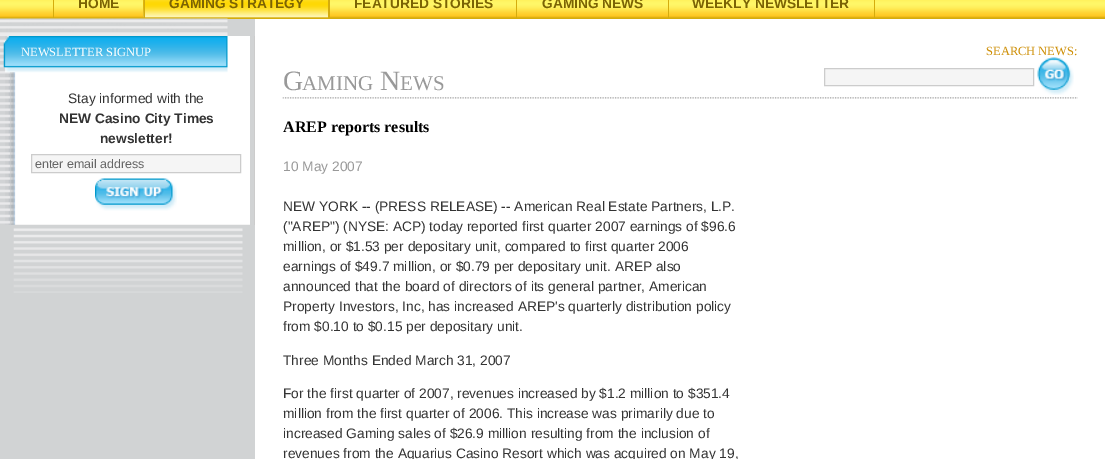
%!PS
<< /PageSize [1105 459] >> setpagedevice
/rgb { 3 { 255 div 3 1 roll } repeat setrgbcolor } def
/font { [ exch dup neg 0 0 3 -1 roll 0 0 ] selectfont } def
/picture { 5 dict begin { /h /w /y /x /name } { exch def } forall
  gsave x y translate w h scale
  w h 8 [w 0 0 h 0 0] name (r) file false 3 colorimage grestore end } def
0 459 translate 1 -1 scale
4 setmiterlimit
255 255 255 rgb
0 0 1105 459 rectfill
213 172 13 rgb
0 18 1105 1 rectfill
(img/1.rgb) 0 0 1105 18 picture
143 0 1 19 rectfill
53 0 1 19 rectfill
(img/2.rgb) 143 0 185 18 picture
[
  [328 0 2 19 213 172 13]
  [144 0 1 19 213 172 13]
  [516 0 1 19 213 172 13]
  [668 0 1 19 213 172 13]
  [874 0 1 19 213 172 13]
  [0 19 255 440 209 211 212]
] { aload pop rgb rectfill } forall
(img/3.rgb) 0 18 228 18 picture
(img/4.rgb) 13 228 230 65 picture
(img/5.rgb) 0 36 250 189 picture
204 204 204 rgb
254 36 1 189 rectfill
(img/6.rgb) 3 36 225 37 picture
245 245 245 rgb
31.5 154.5 moveto 240.5 154.5 lineto 240.5 172.5 lineto 31.5 172.5 lineto closepath gsave fill grestore
204 204 204 rgb
stroke
(img/7.rgb) 95 178 82 33 picture
245 245 245 rgb
824.5 68.5 moveto 1033.5 68.5 lineto 1033.5 85.5 lineto 824.5 85.5 lineto closepath gsave fill grestore
204 204 204 rgb
stroke
(img/8.rgb) 1037 57 37 38 picture
(img/9.rgb) 282 97 796 2 picture
/LiberationSans-Bold 13.75 font
123 99 4 rgb
[
  [(HOME) 78 8]
  [(GAMING STRATEGY) 169 8]
  [(FEATURED STORIES) 354 8]
  [(GAMING NEWS) 542 8]
  [(WEEKLY NEWSLETTER) 692 8]
] { aload pop moveto show } forall
/LiberationSerif-Regular 12.5 font
255 255 255 rgb
21 56 moveto (NEWSLETTER SIGNUP) show
/LiberationSans-Regular 13.75 font
51 51 51 rgb
68 103 moveto (Stay informed with the) show
/LiberationSans-Bold 13.75 font
59 123 moveto (NEW Casino City Times) show
100 143 moveto (newsletter!) show
/LiberationSans-Regular 12.5 font
102 102 102 rgb
35 168 moveto (enter email address) show
/LiberationSerif-Regular 12.5 font
206 142 4 rgb
986 55 moveto (SEARCH NEWS:) show
/LiberationSerif-Regular 28 font
153 153 153 rgb
283 90 moveto (G) show
/LiberationSerif-Regular 21 font
302 90 moveto (AMING) show
/LiberationSerif-Regular 28 font
380 90 moveto (N) show
/LiberationSerif-Regular 21 font
400 90 moveto (EWS) show
/LiberationSerif-Bold 16 font
0 0 0 rgb
283 132 moveto (AREP reports results) show
/LiberationSans-Regular 13.75 font
153 153 153 rgb
283 171 moveto (10 May 2007) show
51 51 51 rgb
[
  [(NEW YORK -- \(PRESS RELEASE\) -- American Real Estate Partners, L.P.) 283 211]
  [(\("AREP"\) \(NYSE: ACP\) today reported first quarter 2007 earnings of $96.6) 283 231]
  [(million, or $1.53 per depositary unit, compared to first quarter 2006) 283 251]
  [(earnings of $49.7 million, or $0.79 per depositary unit. AREP also) 283 271]
  [(announced that the board of directors of its general partner, American) 283 291]
  [(Property Investors, Inc, has increased AREP's quarterly distribution policy) 283 311]
  [(from $0.10 to $0.15 per depositary unit.) 283 331]
  [(Three Months Ended March 31, 2007) 283 365]
  [(For the first quarter of 2007, revenues increased by $1.2 million to $351.4) 283 398]
  [(million from the first quarter of 2006. This increase was primarily due to) 283 418]
  [(increased Gaming sales of $26.9 million resulting from the inclusion of) 283 438]
  [(revenues from the Aquarius Casino Resort which was acquired on May 19,) 283 458]
] { aload pop moveto show } forall
showpage
